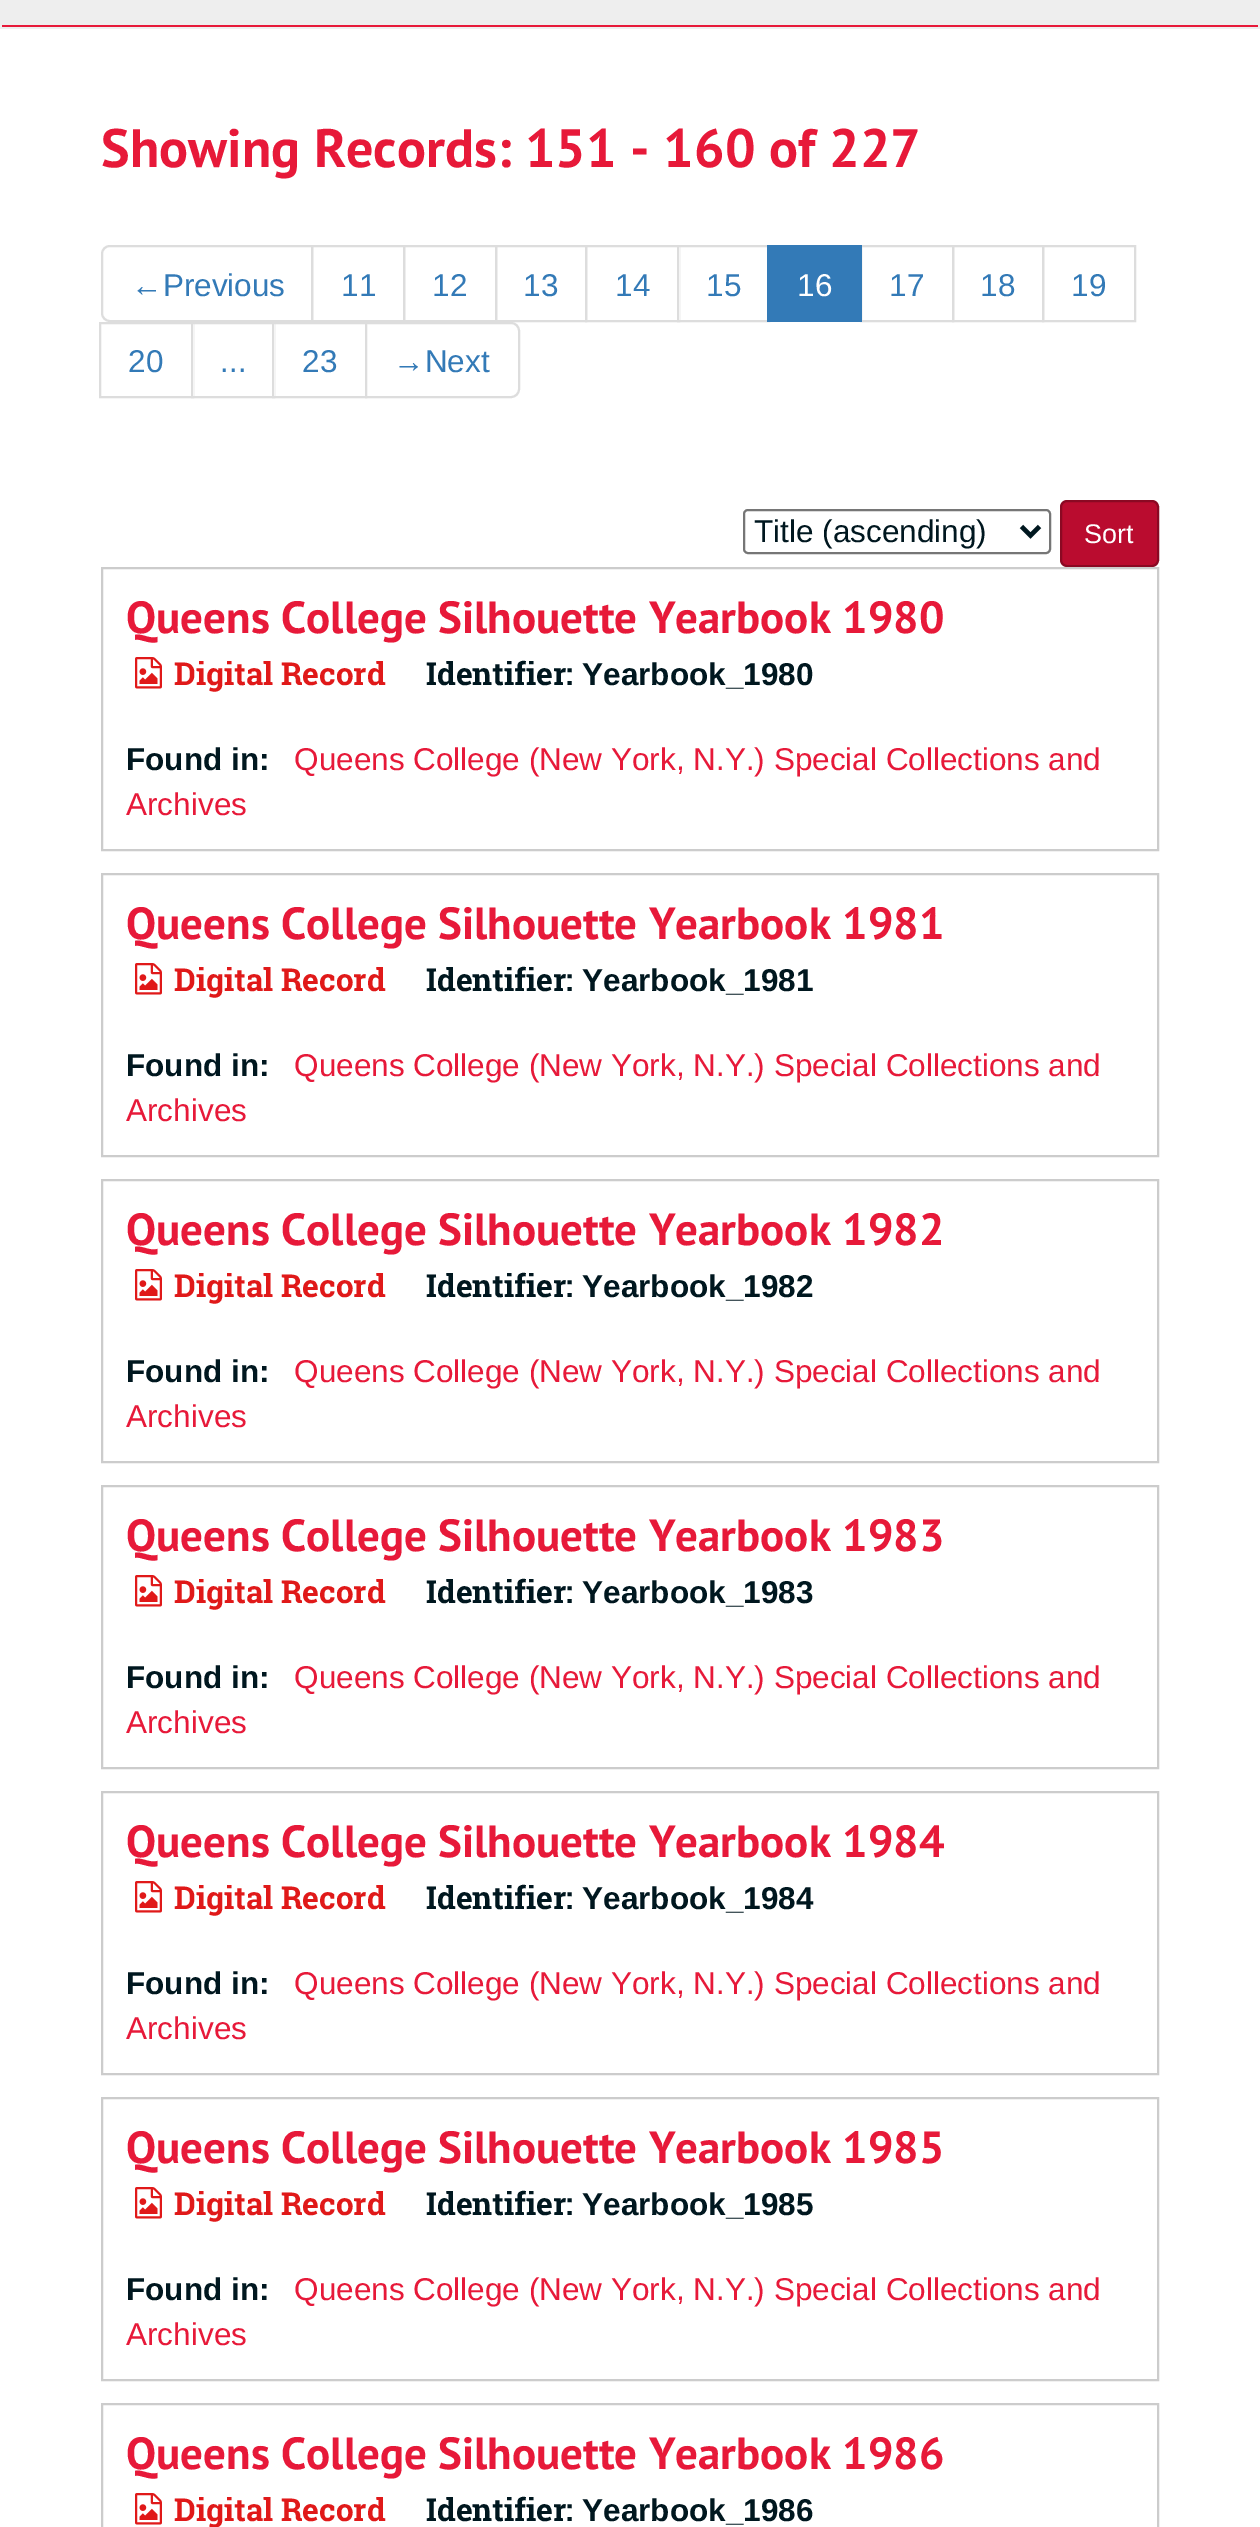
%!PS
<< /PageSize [1260 2527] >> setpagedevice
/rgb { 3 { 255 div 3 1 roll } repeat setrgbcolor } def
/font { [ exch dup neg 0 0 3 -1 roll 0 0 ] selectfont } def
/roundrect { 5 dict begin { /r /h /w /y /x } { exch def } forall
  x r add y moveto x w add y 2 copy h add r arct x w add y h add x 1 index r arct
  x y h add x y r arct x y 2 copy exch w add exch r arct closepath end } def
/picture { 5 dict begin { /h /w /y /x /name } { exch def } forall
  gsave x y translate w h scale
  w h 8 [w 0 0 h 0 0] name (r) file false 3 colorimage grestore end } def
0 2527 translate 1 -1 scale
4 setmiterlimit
255 255 255 rgb
0 0 1260 2527 rectfill
238 238 238 rgb
0 0 1260 29 rectfill
231 25 57 rgb
2 25 1256 2 rectfill
221 221 221 rgb
2 setlinewidth
110 246 moveto 312 246 lineto 312 321 lineto 110 321 lineto 105.5 321 102 317.5 102 313 curveto 102 254 lineto 102 249.5 105.5 246 110 246 curveto closepath stroke
312 246 92 75 rectstroke
404 246 92 75 rectstroke
496 246 90 75 rectstroke
586 246 93 75 rectstroke
255 255 255 rgb
679 247 1 73 rectfill
221 221 221 rgb
678 246 91 75 rectstroke
861 246 92 75 rectstroke
51 122 183 rgb
767 245 95 77 rectfill
221 221 221 rgb
953 246 90 75 rectstroke
1043 246 92 75 rectstroke
100 323 93 74 rectstroke
255 255 255 rgb
193 324 1 72 rectfill
221 221 221 rgb
192 323 82 74 rectstroke
255 255 255 rgb
274 324 1 72 rectfill
221 221 221 rgb
273 323 93 74 rectstroke
255 255 255 rgb
366 323 moveto 511 323 lineto 515.5 323 519 326.5 519 331 curveto 519 389 lineto 519 393.5 515.5 397 511 397 curveto 366 397 lineto closepath gsave fill grestore
221 221 221 rgb
stroke
118 118 118 rgb
744 510 306 43 4 roundrect stroke
0 23 31 rgb
4.5 setlinewidth
1021.5 526.5 moveto 1030.5 535.5 lineto 1039.5 526.5 lineto stroke
186 12 47 rgb
1061 501 97 65 6 roundrect gsave fill grestore
138 9 35 rgb
2 setlinewidth
stroke
204 204 204 rgb
102 568 1056 282 rectstroke
(img/1.rgb) 135 657 27 32 picture
102 874 1056 282 rectstroke
(img/1.rgb) 135 963 27 32 picture
102 1180 1056 282 rectstroke
(img/1.rgb) 135 1269 27 32 picture
102 1486 1056 282 rectstroke
(img/1.rgb) 135 1575 27 32 picture
102 1792 1056 282 rectstroke
(img/1.rgb) 135 1881 27 32 picture
102 2098 1056 282 rectstroke
(img/1.rgb) 135 2187 27 32 picture
102 2404 1056 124 rectstroke
(img/1.rgb) 135 2493 27 32 picture
/PTSans-Bold 54 font
231 25 57 rgb
101 167 moveto (Showing Records: 151 - 160 of 227) show
/LiberationSans-Regular 31.5 font
51 122 183 rgb
[
  [(←Previous) 131 296]
  [(11) 341 296]
  [(12) 432 296]
  [(13) 523 296]
  [(14) 615 296]
  [(15) 706 296]
] { aload pop moveto show } forall
255 255 255 rgb
797 296 moveto (16) show
51 122 183 rgb
[
  [(17) 889 296]
  [(18) 980 296]
  [(19) 1071 296]
  [(20) 128 372]
  [(...) 220 372]
  [(23) 302 372]
  [(→Next) 393 372]
] { aload pop moveto show } forall
0 23 31 rgb
754 542 moveto (Title \(ascending\)) show
/LiberationSans-Regular 27 font
255 255 255 rgb
1084 543 moveto (Sort) show
/PTSans-Bold 45 font
231 25 57 rgb
126 633 moveto (Queens College Silhouette Yearbook 1980) show
/RobotoSlab-Bold 31.5 font
224 25 25 rgb
174 685 moveto (Digital Record) show
0 23 31 rgb
426 685 moveto (Identifier:) show
/LiberationSans-Bold 31.5 font
582 685 moveto (Yearbook_1980) show
126 770 moveto (Found in:) show
/LiberationSans-Regular 31.5 font
231 25 57 rgb
294 770 moveto (Queens College \(New York, N.Y.\) Special Collections and) show
126 815 moveto (Archives) show
/PTSans-Bold 45 font
126 939 moveto (Queens College Silhouette Yearbook 1981) show
/RobotoSlab-Bold 31.5 font
224 25 25 rgb
174 991 moveto (Digital Record) show
0 23 31 rgb
426 991 moveto (Identifier:) show
/LiberationSans-Bold 31.5 font
582 991 moveto (Yearbook_1981) show
126 1076 moveto (Found in:) show
/LiberationSans-Regular 31.5 font
231 25 57 rgb
294 1076 moveto (Queens College \(New York, N.Y.\) Special Collections and) show
126 1121 moveto (Archives) show
/PTSans-Bold 45 font
126 1245 moveto (Queens College Silhouette Yearbook 1982) show
/RobotoSlab-Bold 31.5 font
224 25 25 rgb
174 1297 moveto (Digital Record) show
0 23 31 rgb
426 1297 moveto (Identifier:) show
/LiberationSans-Bold 31.5 font
582 1297 moveto (Yearbook_1982) show
126 1382 moveto (Found in:) show
/LiberationSans-Regular 31.5 font
231 25 57 rgb
294 1382 moveto (Queens College \(New York, N.Y.\) Special Collections and) show
126 1427 moveto (Archives) show
/PTSans-Bold 45 font
126 1551 moveto (Queens College Silhouette Yearbook 1983) show
/RobotoSlab-Bold 31.5 font
224 25 25 rgb
174 1603 moveto (Digital Record) show
0 23 31 rgb
426 1603 moveto (Identifier:) show
/LiberationSans-Bold 31.5 font
582 1603 moveto (Yearbook_1983) show
126 1688 moveto (Found in:) show
/LiberationSans-Regular 31.5 font
231 25 57 rgb
294 1688 moveto (Queens College \(New York, N.Y.\) Special Collections and) show
126 1733 moveto (Archives) show
/PTSans-Bold 45 font
126 1857 moveto (Queens College Silhouette Yearbook 1984) show
/RobotoSlab-Bold 31.5 font
224 25 25 rgb
174 1909 moveto (Digital Record) show
0 23 31 rgb
426 1909 moveto (Identifier:) show
/LiberationSans-Bold 31.5 font
582 1909 moveto (Yearbook_1984) show
126 1994 moveto (Found in:) show
/LiberationSans-Regular 31.5 font
231 25 57 rgb
294 1994 moveto (Queens College \(New York, N.Y.\) Special Collections and) show
126 2039 moveto (Archives) show
/PTSans-Bold 45 font
126 2163 moveto (Queens College Silhouette Yearbook 1985) show
/RobotoSlab-Bold 31.5 font
224 25 25 rgb
174 2215 moveto (Digital Record) show
0 23 31 rgb
426 2215 moveto (Identifier:) show
/LiberationSans-Bold 31.5 font
582 2215 moveto (Yearbook_1985) show
126 2300 moveto (Found in:) show
/LiberationSans-Regular 31.5 font
231 25 57 rgb
294 2300 moveto (Queens College \(New York, N.Y.\) Special Collections and) show
126 2345 moveto (Archives) show
/PTSans-Bold 45 font
126 2469 moveto (Queens College Silhouette Yearbook 1986) show
/RobotoSlab-Bold 31.5 font
224 25 25 rgb
174 2521 moveto (Digital Record) show
0 23 31 rgb
426 2521 moveto (Identifier:) show
/LiberationSans-Bold 31.5 font
582 2521 moveto (Yearbook_1986) show
showpage
